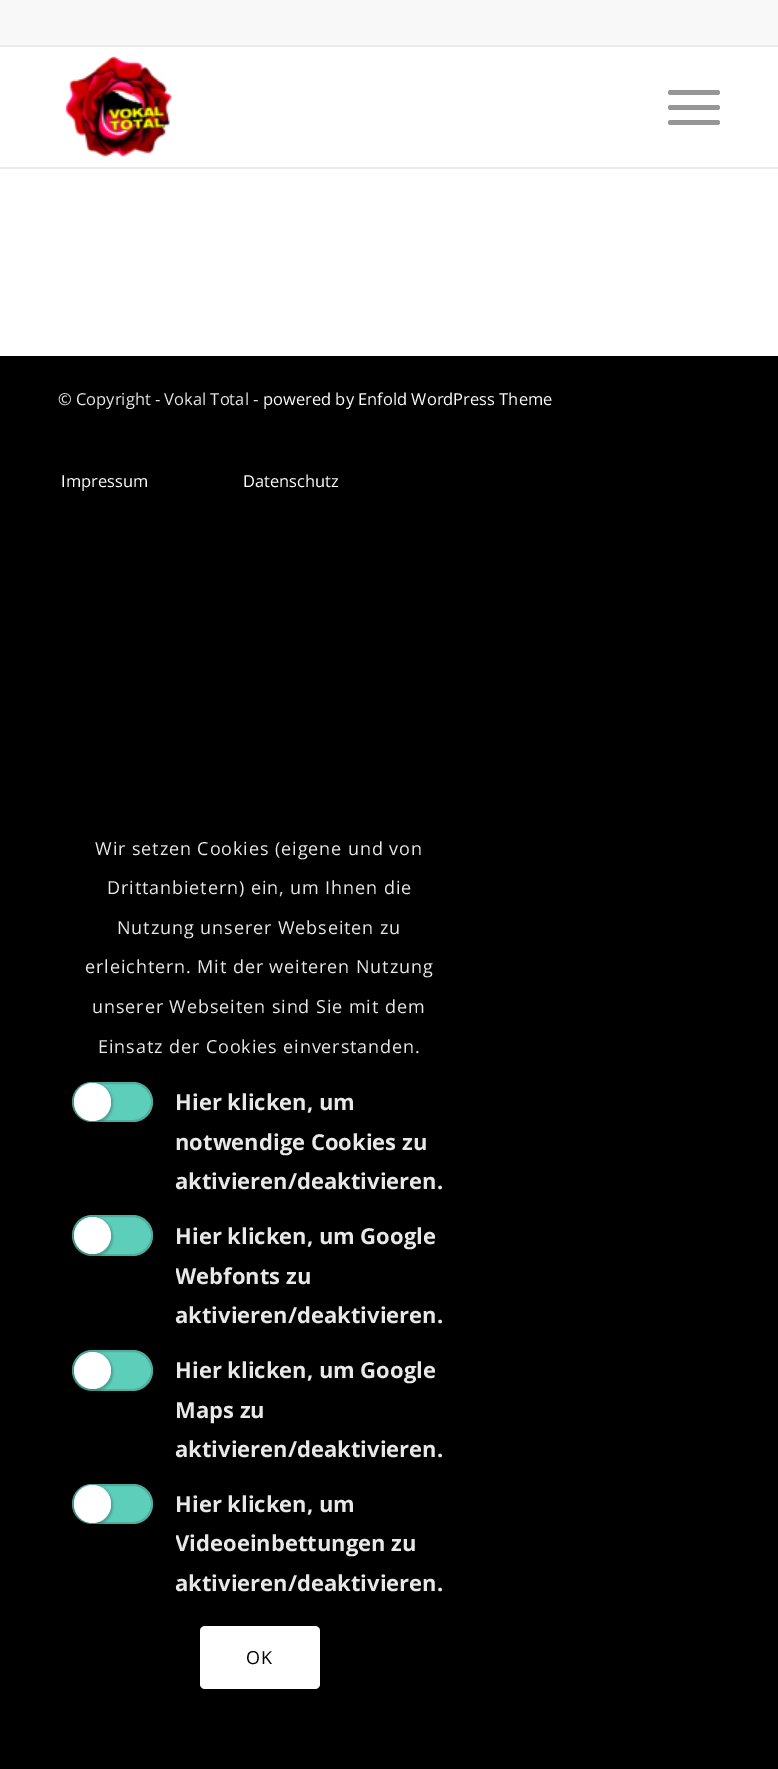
%!PS
<< /PageSize [778 1769] /PageUsesTransparency true >> setpagedevice
/rgb { 3 { 255 div 3 1 roll } repeat setrgbcolor } def
/font { [ exch dup neg 0 0 3 -1 roll 0 0 ] selectfont } def
/alpha { dup .setfillconstantalpha .setstrokeconstantalpha } def
/circle { newpath 0 360 arc closepath } def
/roundrect { 5 dict begin { /r /h /w /y /x } { exch def } forall
  x r add y moveto x w add y 2 copy h add r arct x w add y h add x 1 index r arct
  x y h add x y r arct x y 2 copy exch w add exch r arct closepath end } def
/shadow { 12 dict begin { /a /b /q /h /w /y /x } { exch def } forall gsave /was 0 def
  9 -2 -9 { dup b mul 4 div /e exch def 1 sub .425 mul 2.718 exch exp 1 add a .99 .min exch div /now exch def
    1 1 now sub 1 was sub div sub alpha /was now def
    w h .min e 2 mul add 0 gt { x e sub y e sub w e 2 mul add h e 2 mul add
      q e add b .6 mul add w h .min 2 div e add .min 0 .max roundrect fill } if } for grestore end } def
/picture { 5 dict begin { /h /w /y /x /name } { exch def } forall
  gsave x y translate w h scale
  w h 8 [w 0 0 h 0 0] name (r) file false 3 colorimage grestore end } def
0 .pushpdf14devicefilter
0 1769 translate 1 -1 scale
4 setmiterlimit
0 0 0 rgb
0 0 778 1769 rectfill
[
  [0 0 778 45 248 248 248]
  [0 45 778 2 235 235 235]
  [0 47 778 120 255 255 255]
  [0 167 778 2 235 235 235]
] { aload pop rgb rectfill } forall
(img/1.rgb) 59 47 119 110 picture
150 150 150 rgb
668 105 52 5 2.5 roundrect fill
668 90 52 5 2.5 roundrect fill
668 120 52 5 2.5 roundrect fill
255 255 255 rgb
0 169 778 187 rectfill
93 206 186 rgb
72 1082 81 40 20 roundrect fill
0.15 alpha
0 0 0 rgb
2 setlinewidth
73 1083 79 38 19 roundrect stroke
1 alpha
72 1083 41 41 20.5 1 0.2 shadow
255 255 255 rgb
74 1083 37 38 18.5 roundrect fill
93 206 186 rgb
72 1215 81 41 20.5 roundrect fill
0.15 alpha
0 0 0 rgb
73 1216 79 39 19.5 roundrect stroke
1 alpha
72 1217 41 40 20 1 0.2 shadow
255 255 255 rgb
92.5 1235.5 18.5 circle fill
93 206 186 rgb
72 1350 81 41 20.5 roundrect fill
0.15 alpha
0 0 0 rgb
73 1351 79 39 19.5 roundrect stroke
1 alpha
72 1352 41 40 20 1 0.2 shadow
255 255 255 rgb
92.5 1370.5 18.5 circle fill
93 206 186 rgb
72 1484 81 40 20 roundrect fill
0.15 alpha
0 0 0 rgb
73 1485 79 38 19 roundrect stroke
1 alpha
72 1485 41 41 20.5 1 0.2 shadow
255 255 255 rgb
74 1485 37 38 18.5 roundrect fill
200 1626 120 63 5 roundrect fill
/OpenSans-Regular 16.5 font
232 232 232 rgb
58 405 moveto (© Copyright - Vokal Total -) show
255 255 255 rgb
[
  [(powered by Enfold WordPress Theme) 263 405]
  [(Impressum) 61 487]
  [(Datenschutz) 243 487]
] { aload pop moveto show } forall
/OpenSans-Regular 18 font
232 232 232 rgb
95 855 moveto 0.9 0 (Wir setzen Cookies \(eigene und von) ashow
107 894 moveto 0.9 0 (Drittanbietern\) ein, um Ihnen die) ashow
117 934 moveto 0.9 0 (Nutzung unserer Webseiten zu) ashow
85 973 moveto 0.9 0 (erleichtern. Mit der weiteren Nutzung) ashow
92 1013 moveto 0.9 0 (unserer Webseiten sind Sie mit dem) ashow
98 1053 moveto 0.9 0 (Einsatz der Cookies einverstanden.) ashow
/OpenSans-Bold 22 font
[
  [(Hier klicken, um) 175 1110]
  [(notwendige Cookies zu) 175 1150]
  [(aktivieren/deaktivieren.) 175 1189]
  [(Hier klicken, um Google) 175 1244]
] { aload pop moveto show } forall
gsave
176 1215 271 120 rectclip
175 1284 moveto (Webfonts zu) show
grestore
[
  [(aktivieren/deaktivieren.) 175 1323]
  [(Hier klicken, um Google) 175 1378]
  [(Maps zu) 175 1418]
  [(aktivieren/deaktivieren.) 175 1457]
  [(Hier klicken, um) 175 1512]
] { aload pop moveto show } forall
gsave
176 1484 271 118 rectclip
175 1551 moveto (Videoeinbettungen zu) show
grestore
175 1591 moveto (aktivieren/deaktivieren.) show
/OpenSans-Regular 18 font
0 0 0 rgb
246 1664 moveto 0.9 0 (OK) ashow
.poppdf14devicefilter showpage
